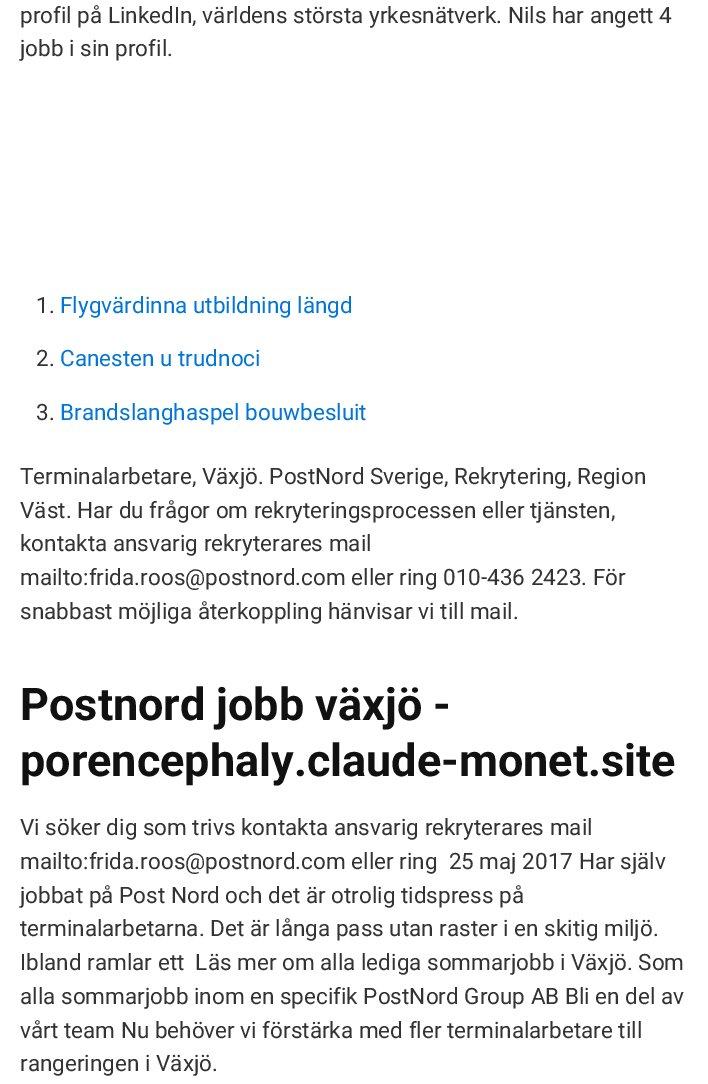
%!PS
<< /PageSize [708 1084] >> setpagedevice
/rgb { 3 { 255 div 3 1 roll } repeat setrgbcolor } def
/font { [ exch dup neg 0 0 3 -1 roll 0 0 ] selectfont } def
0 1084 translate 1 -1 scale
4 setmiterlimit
255 255 255 rgb
0 0 708 1084 rectfill
/Roboto-Regular 22.5 font
51 51 51 rgb
[
  [(profil på LinkedIn, världens största yrkesnätverk. Nils har angett 4) 20 23]
  [(jobb i sin profil.) 20 56]
  [(1.) 36 313]
] { aload pop moveto show } forall
2 117 216 rgb
60 313 moveto (Flygvärdinna utbildning längd) show
51 51 51 rgb
36 366 moveto (2.) show
2 117 216 rgb
60 366 moveto (Canesten u trudnoci) show
51 51 51 rgb
36 420 moveto (3.) show
2 117 216 rgb
60 420 moveto (Brandslanghaspel bouwbesluit) show
51 51 51 rgb
[
  [(Terminalarbetare, Växjö. PostNord Sverige, Rekrytering, Region) 20 484]
  [(Väst. Har du frågor om rekryteringsprocessen eller tjänsten,) 20 518]
  [(kontakta ansvarig rekryterares mail) 20 551]
  [(mailto:frida.roos@postnord.com eller ring 010-436 2423. För) 20 585]
  [(snabbast möjliga återkoppling hänvisar vi till mail.) 20 619]
] { aload pop moveto show } forall
/Roboto-Bold 45 font
17 17 17 rgb
20 720 moveto (Postnord jobb växjö -) show
20 776 moveto (porencephaly.claude-monet.site) show
/Roboto-Regular 22.5 font
51 51 51 rgb
[
  [(Vi söker dig som trivs kontakta ansvarig rekryterares mail) 20 835]
  [(mailto:frida.roos@postnord.com eller ring  25 maj 2017 Har själv) 20 869]
  [(jobbat på Post Nord och det är otrolig tidspress på) 20 903]
  [(terminalarbetarna. Det är långa pass utan raster i en skitig miljö.) 20 936]
  [(Ibland ramlar ett  Läs mer om alla lediga sommarjobb i Växjö. Som) 20 970]
  [(alla sommarjobb inom en specifik PostNord Group AB Bli en del av) 20 1004]
  [(vårt team Nu behöver vi förstärka med fler terminalarbetare till) 20 1038]
  [(rangeringen i Växjö.) 20 1071]
] { aload pop moveto show } forall
showpage
